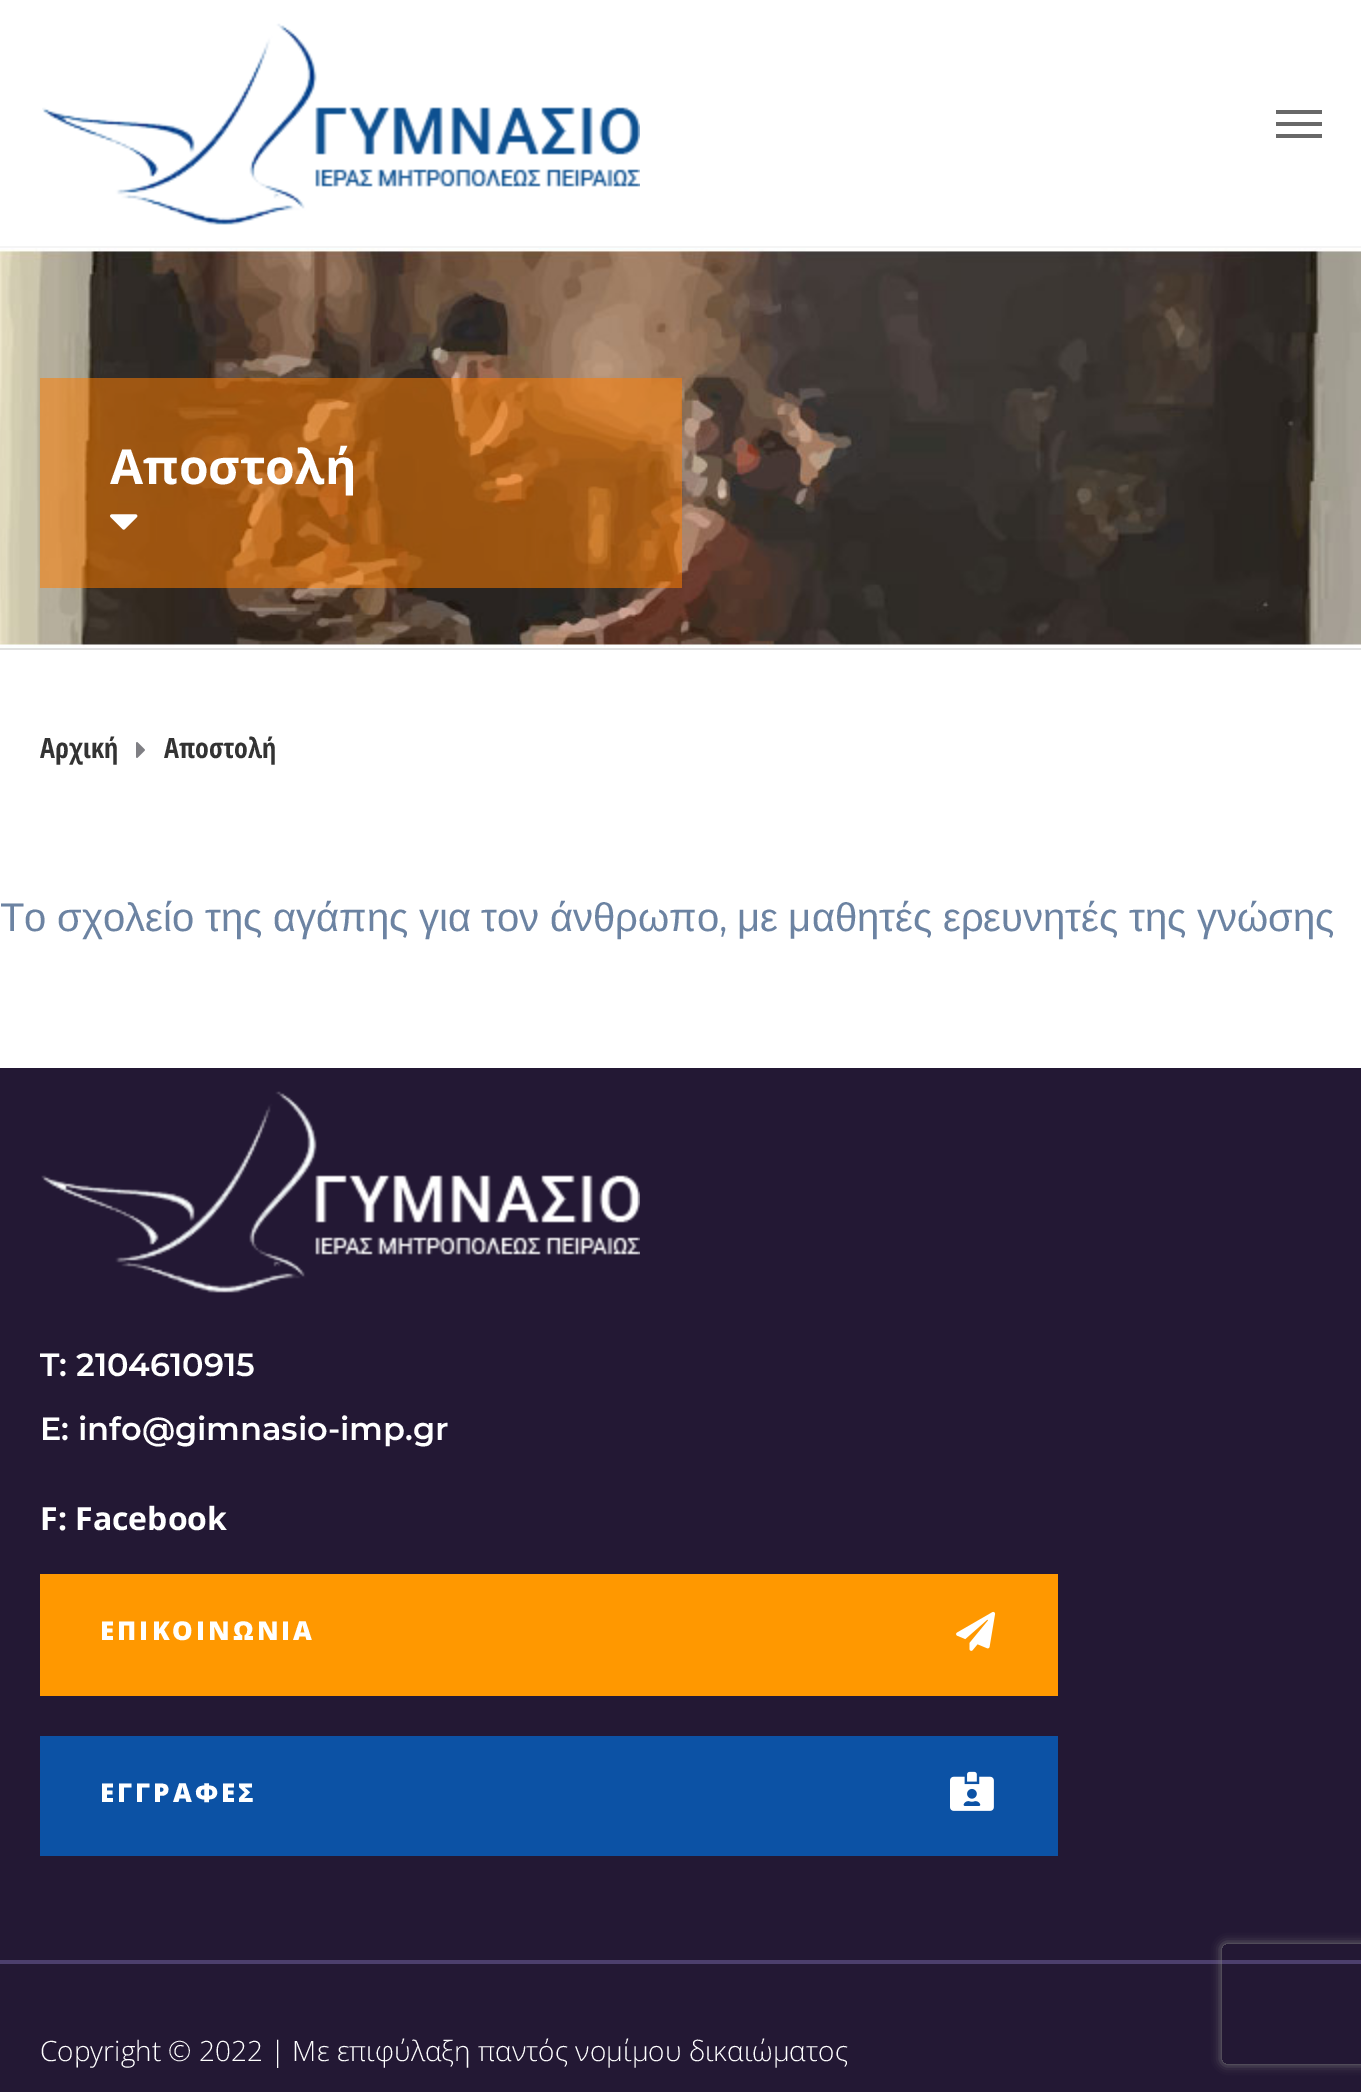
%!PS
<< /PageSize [1361 2092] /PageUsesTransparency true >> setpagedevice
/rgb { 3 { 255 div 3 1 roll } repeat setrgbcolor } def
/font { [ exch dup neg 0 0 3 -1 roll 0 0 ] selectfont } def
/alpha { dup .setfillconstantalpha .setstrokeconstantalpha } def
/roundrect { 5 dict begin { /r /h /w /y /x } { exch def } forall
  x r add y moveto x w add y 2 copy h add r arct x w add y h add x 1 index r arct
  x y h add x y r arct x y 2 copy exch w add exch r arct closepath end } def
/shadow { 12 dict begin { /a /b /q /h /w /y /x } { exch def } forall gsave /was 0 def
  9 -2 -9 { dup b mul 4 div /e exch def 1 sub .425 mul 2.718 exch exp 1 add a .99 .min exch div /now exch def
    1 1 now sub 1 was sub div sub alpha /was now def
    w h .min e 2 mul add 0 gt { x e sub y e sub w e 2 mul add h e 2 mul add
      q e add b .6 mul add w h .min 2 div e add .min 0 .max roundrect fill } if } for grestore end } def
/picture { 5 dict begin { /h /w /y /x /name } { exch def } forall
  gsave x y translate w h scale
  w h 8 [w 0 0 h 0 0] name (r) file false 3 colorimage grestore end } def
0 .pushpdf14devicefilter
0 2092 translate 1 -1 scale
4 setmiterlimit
255 255 255 rgb
0 0 1361 2092 rectfill
245 245 245 rgb
0 246 1361 2 rectfill
(img/1.rgb) 42 23 598 202 picture
[
  [1276 110 46 4 104 104 104]
  [1276 122 46 4 104 104 104]
  [1276 134 46 4 104 104 104]
] { aload pop rgb rectfill } forall
(img/2.rgb) 0 248 1361 400 picture
225 225 225 rgb
0 648 1361 2 rectfill
0.53 alpha
255 125 0 rgb
40 378 642 210 rectfill
1 alpha
(img/3.rgb) 110 514 28 16 picture
(img/4.rgb) 136 742 9 16 picture
35 24 52 rgb
0 1068 1361 892 rectfill
76 63 109 rgb
0 1960 1361 4 rectfill
(img/5.rgb) 41 1091 599 202 picture
255 152 0 rgb
40 1574 1018 122 rectfill
(img/6.rgb) 956 1611 40 40 picture
12 82 165 rgb
40 1736 1018 120 rectfill
(img/7.rgb) 950 1771 44 40 picture
35 24 52 rgb
0 1964 1361 128 rectfill
gsave
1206 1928 moveto 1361 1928 lineto 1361 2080 lineto 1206 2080 lineto closepath 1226 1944 moveto 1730 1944 lineto 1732 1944 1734 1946 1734 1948 curveto 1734 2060 lineto 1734 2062 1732 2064 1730 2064 curveto 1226 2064 lineto 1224 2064 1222 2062 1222 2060 curveto 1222 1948 lineto 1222 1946 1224 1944 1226 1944 curveto closepath eoclip newpath
128 128 128 rgb
1222 1944 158 120 4 5 1 shadow
grestore
/OpenSans-Bold 48 font
255 255 255 rgb
110 484 moveto (Αποστολή) show
/OpenSansCondensed-Bold 28 font
51 51 51 rgb
40 758 moveto (Αρχική) show
164 758 moveto (Αποστολή) show
/LiberationSans-Regular 40 font
108 131 162 rgb
0 931 moveto -0.5 0 32 (Το σχολείο της αγάπης για τον άνθρωπο) widthshow
/Montserrat-Regular 40 font
719 931 moveto (,) show
/LiberationSans-Regular 40 font
737 931 moveto -0.5 0 32 (με μαθητές ερευνητές της γνώσης) widthshow
/Montserrat-SemiBold 32 font
255 255 255 rgb
40 1376 moveto (T: 2104610915) show
40 1440 moveto (E: info@gimnasio-imp.gr) show
/OpenSans-Bold 32 font
40 1530 moveto (F: Facebook) show
/OpenSans-ExtraBold 26 font
100 1640 moveto 3 0 (ΕΠΙΚΟΙΝΩΝΙΑ) ashow
100 1802 moveto 3 0 (ΕΓΓΡΑΦΕΣ) ashow
/OpenSans-Light 28 font
40 2061 moveto (Copyright © 2022 | Με επιφύλαξη παντός νομίμου δικαιώματος) show
.poppdf14devicefilter showpage
